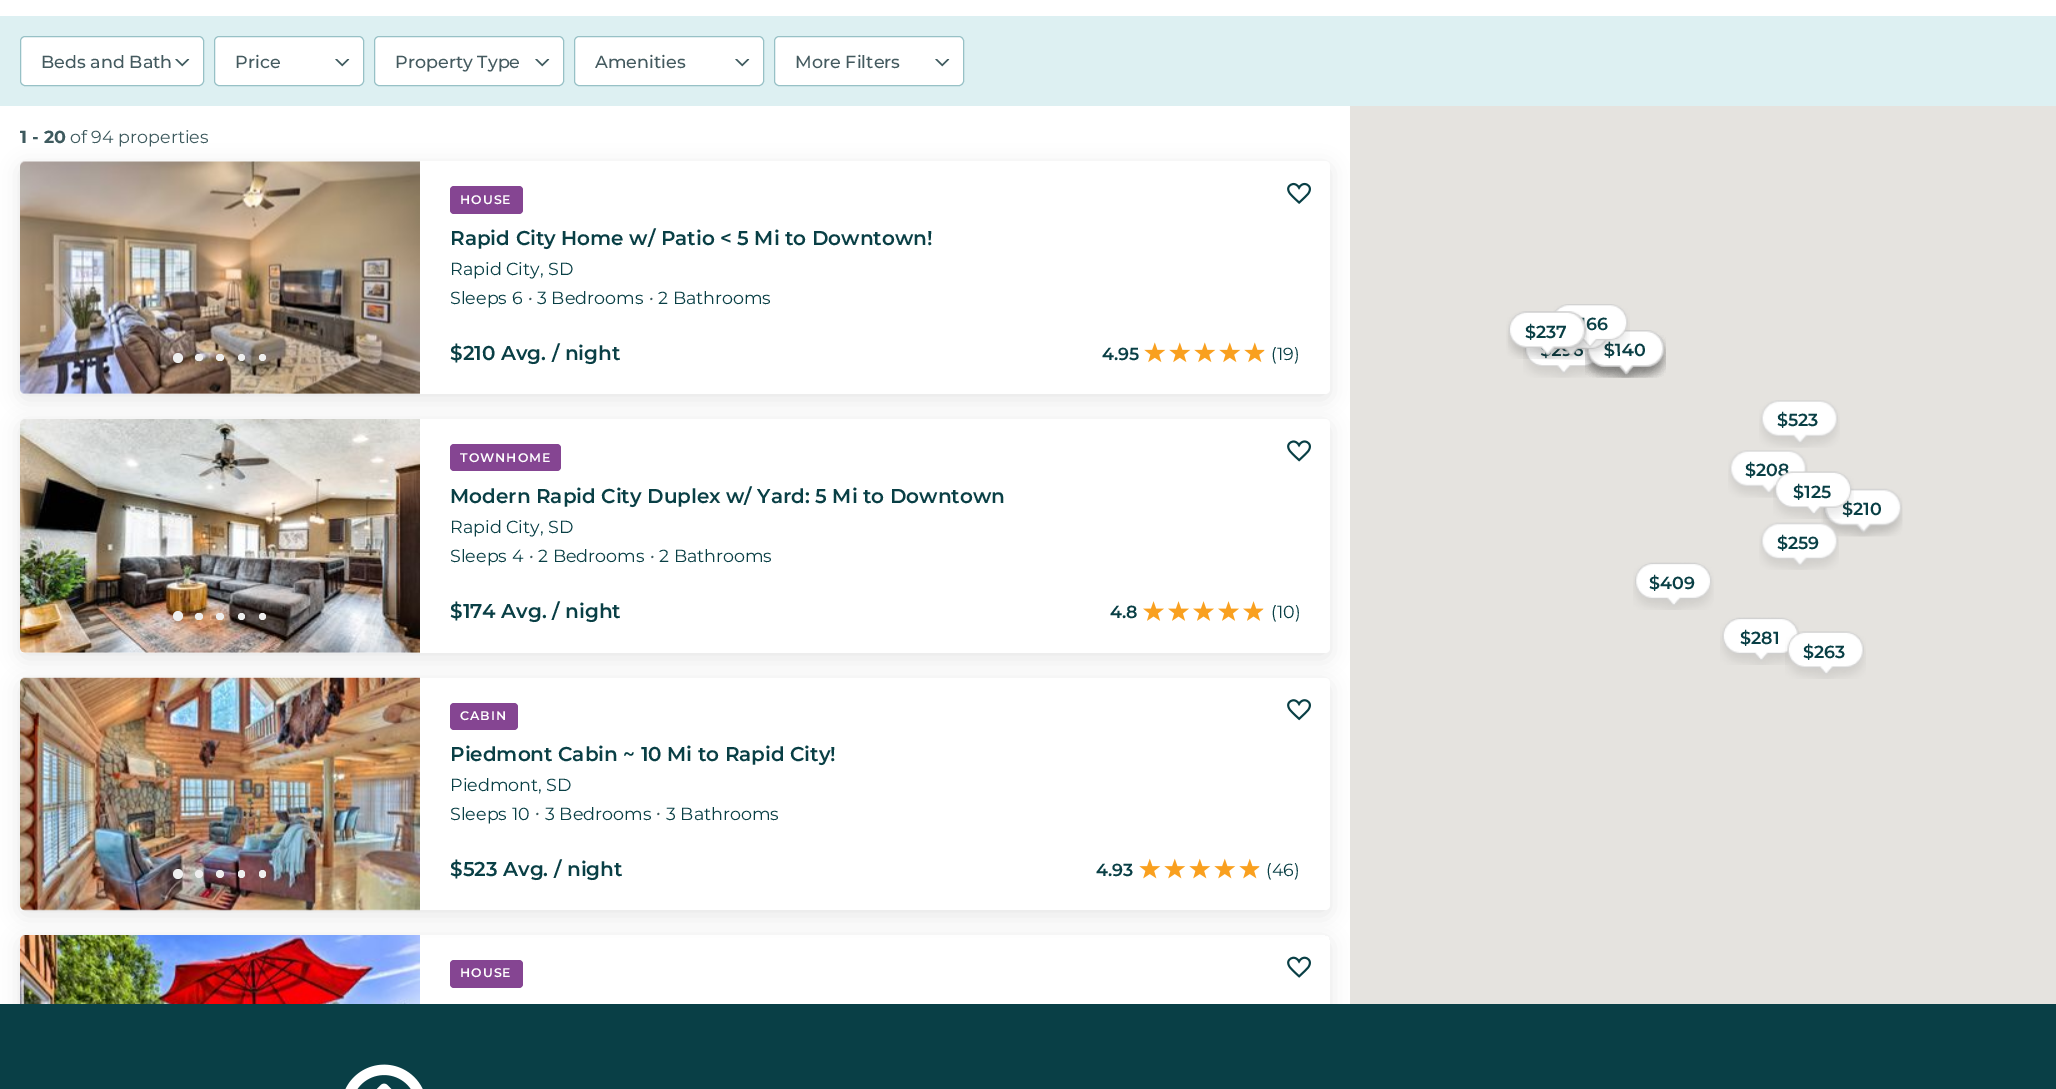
%!PS
<< /PageSize [2056 1089] /PageUsesTransparency true >> setpagedevice
/rgb { 3 { 255 div 3 1 roll } repeat setrgbcolor } def
/font { [ exch dup neg 0 0 3 -1 roll 0 0 ] selectfont } def
/alpha { dup .setfillconstantalpha .setstrokeconstantalpha } def
/circle { newpath 0 360 arc closepath } def
/roundrect { 5 dict begin { /r /h /w /y /x } { exch def } forall
  x r add y moveto x w add y 2 copy h add r arct x w add y h add x 1 index r arct
  x y h add x y r arct x y 2 copy exch w add exch r arct closepath end } def
/shadow { 12 dict begin { /a /b /q /h /w /y /x } { exch def } forall gsave /was 0 def
  9 -2 -9 { dup b mul 4 div /e exch def 1 sub .425 mul 2.718 exch exp 1 add a .99 .min exch div /now exch def
    1 1 now sub 1 was sub div sub alpha /was now def
    w h .min e 2 mul add 0 gt { x e sub y e sub w e 2 mul add h e 2 mul add
      q e add b .6 mul add w h .min 2 div e add .min 0 .max roundrect fill } if } for grestore end } def
/picture { 5 dict begin { /h /w /y /x /name } { exch def } forall
  gsave x y translate w h scale
  w h 8 [w 0 0 h 0 0] name (r) file false 3 colorimage grestore end } def
0 .pushpdf14devicefilter
0 1089 translate 1 -1 scale
4 setmiterlimit
255 255 255 rgb
0 0 2056 1089 rectfill
221 240 242 rgb
0 16 2056 90 rectfill
255 255 255 rgb
20.5 36.5 183 49 4.5 roundrect gsave fill grestore
151 193 198 rgb
stroke
(img/1.rgb) 175 59 15 8 picture
255 255 255 rgb
214.5 36.5 149 49 4.5 roundrect gsave fill grestore
151 193 198 rgb
stroke
(img/1.rgb) 335 59 15 8 picture
255 255 255 rgb
374.5 36.5 189 49 4.5 roundrect gsave fill grestore
151 193 198 rgb
stroke
(img/1.rgb) 535 59 15 8 picture
255 255 255 rgb
574.5 36.5 189 49 4.5 roundrect gsave fill grestore
151 193 198 rgb
stroke
(img/1.rgb) 735 59 15 8 picture
255 255 255 rgb
774.5 36.5 189 49 4.5 roundrect gsave fill grestore
151 193 198 rgb
stroke
(img/1.rgb) 935 59 15 8 picture
0 0 0 rgb
20 166 1310 233 5 10 0.1 shadow
255 255 255 rgb
20 161 moveto 1325 161 lineto 1328 161 1330 163 1330 166 curveto 1330 389 lineto 1330 392 1328 394 1325 394 curveto 20 394 lineto closepath fill
0 0 0 rgb
20 424 1310 234 5 10 0.1 shadow
247 247 247 rgb
20 161 400 233 rectfill
(img/2.rgb) 20 161 400 233 picture
239 239 239 rgb
178 358 5 circle fill
195 354 8 7 3.5 roundrect fill
216 354 8 7 3.5 roundrect fill
241.5 357.5 3.5 circle fill
262.5 357.5 3.5 circle fill
(img/3.rgb) 1287 182 24 22 picture
133 69 146 rgb
450 186 73 28 4 roundrect fill
(img/4.rgb) 1144 342 22 21 picture
(img/4.rgb) 1169 342 22 21 picture
(img/4.rgb) 1194 342 22 21 picture
(img/4.rgb) 1219 342 22 21 picture
(img/5.rgb) 1244 342 21 21 picture
255 255 255 rgb
20 419 moveto 1325 419 lineto 1328 419 1330 421 1330 424 curveto 1330 648 lineto 1330 651 1328 653 1325 653 curveto 20 653 lineto closepath fill
0 0 0 rgb
20 683 1310 232 5 10 0.1 shadow
247 247 247 rgb
20 419 400 234 rectfill
(img/6.rgb) 20 419 400 234 picture
239 239 239 rgb
178 616 5 circle fill
195 613 8 7 3.5 roundrect fill
216 613 8 7 3.5 roundrect fill
241.5 616.5 3.5 circle fill
262.5 616.5 3.5 circle fill
(img/7.rgb) 1287 440 24 22 picture
133 69 146 rgb
450 444 111 27 4 roundrect fill
(img/8.rgb) 1143 601 21 20 picture
(img/8.rgb) 1168 601 21 20 picture
(img/8.rgb) 1193 601 21 20 picture
(img/8.rgb) 1218 601 21 20 picture
(img/9.rgb) 1243 601 21 20 picture
255 255 255 rgb
20 678 moveto 1325 678 lineto 1328 678 1330 680 1330 683 curveto 1330 905 lineto 1330 908 1328 910 1325 910 curveto 20 910 lineto closepath fill
9 63 70 rgb
0 1004 2056 85 rectfill
(img/36.rgb) 345 1064 78 25 picture
gsave
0 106 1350 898 rectclip
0 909 moveto 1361 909 lineto 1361 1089 lineto 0 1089 lineto closepath 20 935 moveto 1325 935 lineto 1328 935 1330 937 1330 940 curveto 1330 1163 lineto 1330 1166 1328 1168 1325 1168 curveto 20 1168 lineto closepath eoclip newpath
0 0 0 rgb
20 940 1310 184 5 10 0.1 shadow
grestore
247 247 247 rgb
20 678 400 232 rectfill
(img/10.rgb) 20 677 400 234 picture
239 239 239 rgb
178 874 5 circle fill
199 874 4 circle fill
220 874 4 circle fill
238 870 7 8 3.5 roundrect fill
259 870 7 8 3.5 roundrect fill
(img/11.rgb) 1287 699 24 22 picture
133 69 146 rgb
450 703 68 27 4 roundrect fill
(img/12.rgb) 1139 858 22 21 picture
(img/12.rgb) 1164 858 22 21 picture
(img/12.rgb) 1189 858 22 21 picture
(img/12.rgb) 1214 858 22 21 picture
(img/13.rgb) 1239 858 21 21 picture
247 247 247 rgb
20 935 5 6 rectfill
(img/14.rgb) 20 935 400 69 picture
133 69 146 rgb
450 960 73 28 4 roundrect fill
(img/15.rgb) 1287 956 24 22 picture
229 227 223 rgb
1350 106 706 898 rectfill
(img/26.rgb) 1523 346 79 32 picture
(img/19.rgb) 1585 330 81 48 picture
(img/20.rgb) 1585 330 81 48 picture
(img/21.rgb) 1585 335 81 43 picture
(img/22.rgb) 1585 335 81 43 picture
(img/24.rgb) 1585 337 81 41 picture
(img/25.rgb) 1585 340 81 38 picture
(img/27.rgb) 1759 400 81 48 picture
(img/28.rgb) 1728 450 80 48 picture
(img/31.rgb) 1821 489 81 48 picture
(img/30.rgb) 1823 488 80 49 picture
(img/32.rgb) 1759 522 80 48 picture
(img/33.rgb) 1633 562 81 48 picture
(img/34.rgb) 1720 617 79 48 picture
(img/35.rgb) 1785 631 81 48 picture
/Montserrat-Medium 17.5 font
68 90 95 rgb
[
  [(Beds and Bath) 41 68]
  [(Price) 235 68]
  [(Property Type) 395 68]
  [(Amenities) 595 68]
  [(More Filters) 795 68]
] { aload pop moveto show } forall
/Montserrat-Bold 17.5 font
62 90 94 rgb
20 143 moveto (1 - 20) show
/Montserrat-Regular 17.5 font
70 143 moveto (of 94 properties) show
/Montserrat-SemiBold 12.5 font
255 255 255 rgb
460 204 moveto 1 0 (HOUSE) ashow
/Montserrat-SemiBold 20 font
9 63 69 rgb
450 245 moveto (Rapid City Home w/ Patio < 5 Mi to Downtown!) show
/Montserrat-Regular 17.5 font
450 275 moveto (Rapid City, SD) show
450 304 moveto (Sleeps 6) show
/Montserrat-Regular 22 font
62 90 94 rgb
528 300 moveto (.) show
/Montserrat-Regular 17.5 font
9 63 69 rgb
537 304 moveto (3 Bedrooms) show
/Montserrat-Regular 22 font
62 90 94 rgb
649 300 moveto (.) show
/Montserrat-Regular 17.5 font
9 63 69 rgb
658 304 moveto (2 Bathrooms) show
/Montserrat-SemiBold 20 font
450 360 moveto ($210 Avg. / night) show
/Montserrat-SemiBold 17.5 font
1102 360 moveto (4.95) show
/Montserrat-Regular 17.5 font
1271 360 moveto (\(19\)) show
/Montserrat-SemiBold 12.5 font
255 255 255 rgb
460 462 moveto 1 0 (TOWNHOME) ashow
/Montserrat-SemiBold 20 font
9 63 69 rgb
450 503 moveto (Modern Rapid City Duplex w/ Yard: 5 Mi to Downtown) show
/Montserrat-Regular 17.5 font
450 533 moveto (Rapid City, SD) show
450 562 moveto (Sleeps 4) show
/Montserrat-Regular 22 font
62 90 94 rgb
529 558 moveto (.) show
/Montserrat-Regular 17.5 font
9 63 69 rgb
538 562 moveto (2 Bedrooms) show
/Montserrat-Regular 22 font
62 90 94 rgb
650 558 moveto (.) show
/Montserrat-Regular 17.5 font
9 63 69 rgb
659 562 moveto (2 Bathrooms) show
/Montserrat-SemiBold 20 font
450 618 moveto ($174 Avg. / night) show
/Montserrat-SemiBold 17.5 font
1110 618 moveto (4.8) show
/Montserrat-Regular 17.5 font
1271 618 moveto (\(10\)) show
/Montserrat-SemiBold 12.5 font
255 255 255 rgb
460 720 moveto 1 0 (CABIN) ashow
/Montserrat-SemiBold 20 font
9 63 69 rgb
450 761 moveto (Piedmont Cabin ~ 10 Mi to Rapid City!) show
/Montserrat-Regular 17.5 font
450 791 moveto (Piedmont, SD) show
450 820 moveto (Sleeps 10) show
/Montserrat-Regular 22 font
62 90 94 rgb
535 815 moveto (.) show
/Montserrat-Regular 17.5 font
9 63 69 rgb
545 820 moveto (3 Bedrooms) show
/Montserrat-Regular 22 font
62 90 94 rgb
656 815 moveto (.) show
/Montserrat-Regular 17.5 font
9 63 69 rgb
666 820 moveto (3 Bathrooms) show
/Montserrat-SemiBold 20 font
450 876 moveto ($523 Avg. / night) show
/Montserrat-SemiBold 17.5 font
1096 876 moveto (4.93) show
/Montserrat-Regular 17.5 font
1266 876 moveto (\(46\)) show
/Montserrat-SemiBold 12.5 font
255 255 255 rgb
460 977 moveto 1 0 (HOUSE) ashow
/Montserrat-SemiBold 17.5 font
9 63 69 rgb
1604 356 moveto ($140) show
(img/23.rgb) 1531 340 80 20 picture
(img/17.rgb) 1553 304 77 48 picture
1586 330 moveto (66) show
(img/18.rgb) 1508 311 81 48 picture
(img/16.rgb) 1506 311 81 48 picture
[
  [($237) 1525 338]
  [($523) 1777 426]
  [($208) 1745 476]
  [($210) 1842 515]
] { aload pop moveto show } forall
(img/29.rgb) 1773 471 81 48 picture
[
  [($125) 1793 498]
  [($259) 1777 549]
  [($409) 1649 589]
  [($281) 1740 644]
  [($263) 1803 658]
] { aload pop moveto show } forall
.poppdf14devicefilter showpage
